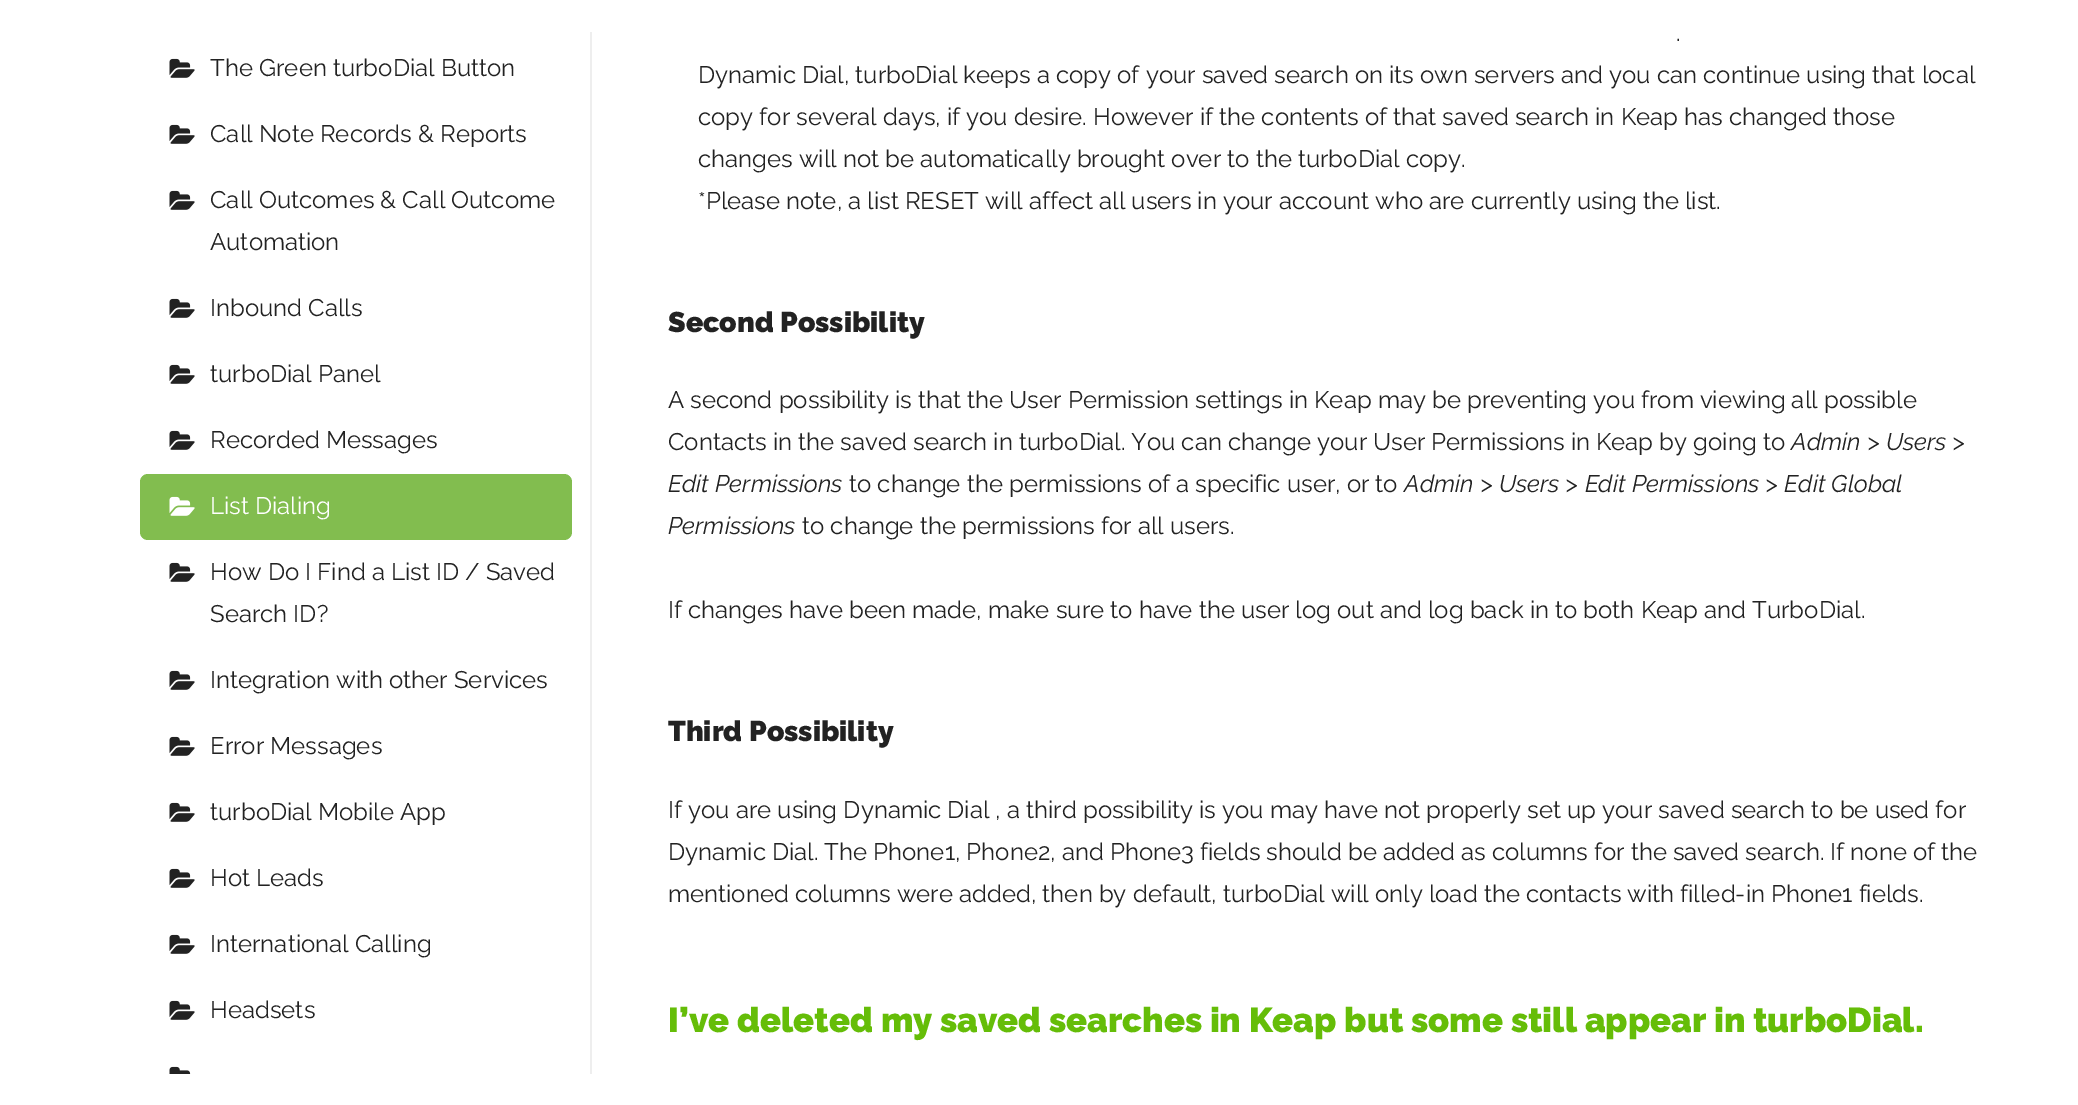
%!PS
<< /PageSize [2078 1105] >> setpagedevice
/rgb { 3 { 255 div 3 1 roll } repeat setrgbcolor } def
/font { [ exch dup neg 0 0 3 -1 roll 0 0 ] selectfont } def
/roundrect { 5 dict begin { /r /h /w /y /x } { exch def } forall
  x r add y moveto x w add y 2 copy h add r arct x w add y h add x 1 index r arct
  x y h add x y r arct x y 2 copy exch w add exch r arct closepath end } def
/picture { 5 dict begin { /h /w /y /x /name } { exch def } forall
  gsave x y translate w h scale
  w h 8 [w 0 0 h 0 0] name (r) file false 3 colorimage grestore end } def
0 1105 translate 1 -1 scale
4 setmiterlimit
255 255 255 rgb
0 0 2078 1105 rectfill
(img/1.rgb) 169 58 26 20 picture
(img/1.rgb) 169 124 26 20 picture
(img/1.rgb) 169 190 26 20 picture
(img/1.rgb) 169 298 26 20 picture
(img/1.rgb) 169 364 26 20 picture
(img/1.rgb) 169 430 26 20 picture
130 189 79 rgb
140 474 432 66 8 roundrect fill
(img/2.rgb) 169 496 26 20 picture
(img/1.rgb) 169 562 26 20 picture
(img/1.rgb) 169 670 26 20 picture
(img/1.rgb) 169 736 26 20 picture
(img/1.rgb) 169 802 26 20 picture
(img/1.rgb) 169 868 26 20 picture
(img/1.rgb) 169 934 26 20 picture
(img/1.rgb) 169 1000 26 20 picture
(img/3.rgb) 169 1066 22 8 picture
238 238 238 rgb
590 32 2 1042 rectfill
/Raleway-Regular 24 font
34 34 34 rgb
[
  [(The Green turboDial Button) 210 76]
  [(Call Note Records & Reports) 210 142]
  [(Call Outcomes & Call Outcome) 210 208]
  [(Automation) 210 250]
  [(Inbound Calls) 210 316]
  [(turboDial Panel) 210 382]
  [(Recorded Messages) 210 448]
] { aload pop moveto show } forall
255 255 255 rgb
210 514 moveto (List Dialing) show
34 34 34 rgb
[
  [(How Do I Find a List ID / Saved) 210 580]
  [(Search ID?) 210 622]
  [(Integration with other Services) 210 688]
  [(Error Messages) 210 754]
  [(turboDial Mobile App) 210 820]
  [(Hot Leads) 210 886]
  [(International Calling) 210 952]
  [(Headsets) 210 1018]
  [(.) 1676 41]
  [(Dynamic Dial, turboDial keeps a copy of your saved search on its own servers and you can continue using that local) 698 83]
  [(copy for several days, if you desire. However if the contents of that saved search in Keap has changed those) 698 125]
  [(changes will not be automatically brought over to the turboDial copy.) 698 167]
  [(*Please note, a list RESET will affect all users in your account who are currently using the list.) 698 209]
] { aload pop moveto show } forall
/Raleway-Black 28.5 font
668 332 moveto (Second Possibility) show
/Raleway-Regular 24 font
668 408 moveto (A second possibility is that the User Permission settings in Keap may be preventing you from viewing all possible) show
668 450 moveto (Contacts in the saved search in turboDial. You can change your User Permissions in Keap by going to) show
/Raleway-Italic 24 font
1791 450 moveto (Admin > Users >) show
668 492 moveto (Edit Permissions) show
/Raleway-Regular 24 font
849 492 moveto (to change the permissions of a specific user, or to) show
/Raleway-Italic 24 font
1404 492 moveto (Admin > Users > Edit Permissions > Edit Global) show
668 534 moveto (Permissions) show
/Raleway-Regular 24 font
802 534 moveto (to change the permissions for all users.) show
668 618 moveto (If changes have been made, make sure to have the user log out and log back in to both Keap and TurboDial.) show
/Raleway-Black 28.5 font
668 741 moveto (Third Possibility) show
/Raleway-Regular 24 font
[
  [(If you are using Dynamic Dial , a third possibility is you may have not properly set up your saved search to be used for) 668 818]
  [(Dynamic Dial. The Phone1, Phone2, and Phone3 fields should be added as columns for the saved search. If none of the) 668 860]
  [(mentioned columns were added, then by default, turboDial will only load the contacts with filled-in Phone1 fields.) 668 902]
] { aload pop moveto show } forall
/Raleway-Black 34.5 font
101 189 8 rgb
668 1032 moveto (I’ve deleted my saved searches in Keap but some still appear in turboDial.) show
showpage
